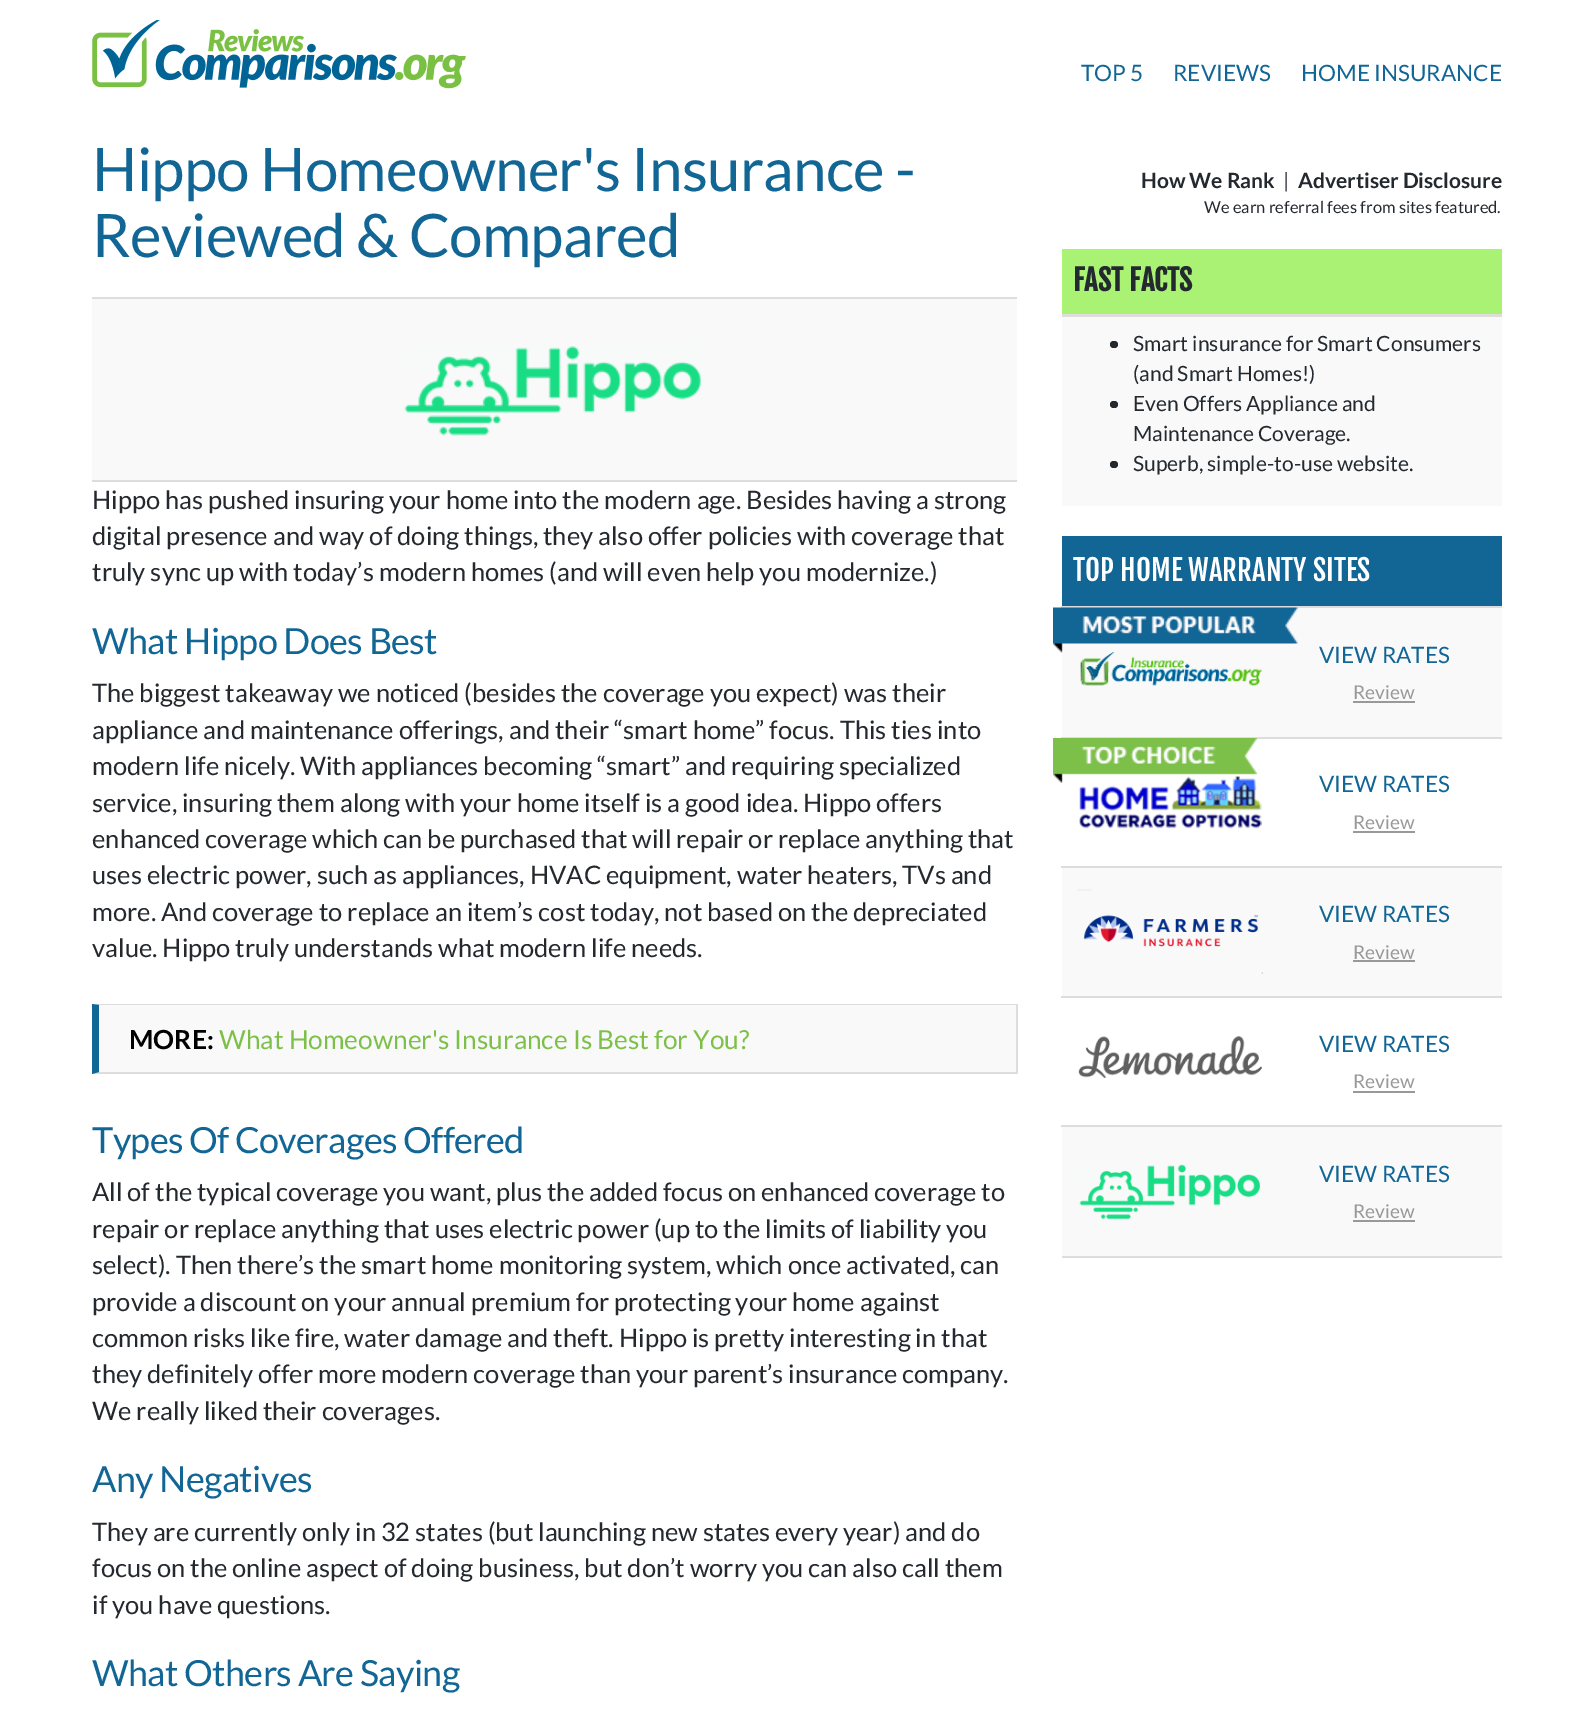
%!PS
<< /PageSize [1593 1715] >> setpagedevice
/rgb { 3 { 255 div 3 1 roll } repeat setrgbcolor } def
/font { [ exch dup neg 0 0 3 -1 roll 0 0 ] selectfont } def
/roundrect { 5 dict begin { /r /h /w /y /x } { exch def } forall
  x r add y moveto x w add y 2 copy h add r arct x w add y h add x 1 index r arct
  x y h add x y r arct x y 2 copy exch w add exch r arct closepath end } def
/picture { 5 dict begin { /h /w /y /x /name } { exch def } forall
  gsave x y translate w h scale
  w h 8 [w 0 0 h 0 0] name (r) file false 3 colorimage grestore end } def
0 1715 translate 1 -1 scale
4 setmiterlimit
255 255 255 rgb
0 0 1593 1715 rectfill
(img/1.rgb) 92 20 374 69 picture
[
  [92 299 925 181 249 249 249]
  [92 297 925 2 221 221 221]
  [92 480 925 2 221 221 221]
] { aload pop rgb rectfill } forall
(img/2.rgb) 404 346 297 90 picture
249 249 249 rgb
99 1005 917 67 rectfill
221 221 221 rgb
92 1004 moveto 1017 1004 lineto 1016 1005 lineto 99 1005 lineto closepath fill
1016 1004 2 70 rectfill
1017 1074 moveto 92 1074 lineto 99 1072 lineto 1016 1072 lineto closepath fill
17 102 150 rgb
92 1074 moveto 92 1004 lineto 99 1005 lineto 99 1072 lineto closepath fill
[
  [1062 249 440 65 170 242 115]
  [1062 314 440 3 221 221 221]
  [1062 317 440 189 249 249 249]
] { aload pop rgb rectfill } forall
35 41 47 rgb
1110 341 8 7 3.5 roundrect fill
1110 401 8 7 3.5 roundrect fill
1110 461 8 7 3.5 roundrect fill
[
  [1062 1256 440 2 221 221 221]
  [1062 536 440 70 17 102 150]
  [1062 608 440 129 249 249 249]
] { aload pop rgb rectfill } forall
(img/4.rgb) 1080 652 182 34 picture
221 221 221 rgb
1061 606 441 2 rectfill
(img/3.rgb) 1053 607 245 46 picture
153 153 153 rgb
1353 701 62 2 rectfill
(img/6.rgb) 1079 776 183 53 picture
221 221 221 rgb
1061 737 441 2 rectfill
(img/5.rgb) 1053 738 204 45 picture
153 153 153 rgb
1353 831 62 2 rectfill
249 249 249 rgb
1062 868 440 128 rectfill
(img/7.rgb) 1077 889 186 85 picture
221 221 221 rgb
1061 866 441 2 rectfill
153 153 153 rgb
1353 960 62 2 rectfill
(img/8.rgb) 1078 1036 184 42 picture
[
  [1061 996 441 2 221 221 221]
  [1353 1091 62 2 153 153 153]
  [1062 1127 440 129 249 249 249]
] { aload pop rgb rectfill } forall
(img/9.rgb) 1079 1164 182 56 picture
221 221 221 rgb
1061 1125 441 2 rectfill
153 153 153 rgb
1353 1220 62 2 rectfill
/Lato-Regular 22.5 font
17 102 150 rgb
[
  [(TOP 5) 1081 81]
  [(REVIEWS) 1173 81]
  [(HOME INSURANCE) 1301 81]
] { aload pop moveto show } forall
/Lato-Regular 60 font
92 191 moveto -0.65 0 (Hippo Homeowner's Insurance -) ashow
92 257 moveto -0.65 0 (Reviewed & Compared) ashow
/Lato-Regular 25.5 font
35 41 47 rgb
[
  [(Hippo has pushed insuring your home into the modern age. Besides having a strong) 92 509]
  [(digital presence and way of doing things, they also offer policies with coverage that) 92 545]
  [(truly sync up with today’s modern homes \(and will even help you modernize.\)) 92 581]
] { aload pop moveto show } forall
/Lato-Regular 36 font
17 102 150 rgb
92 654 moveto -0.65 0 (What Hippo Does Best) ashow
/Lato-Regular 25.5 font
35 41 47 rgb
[
  [(The biggest takeaway we noticed \(besides the coverage you expect\) was their) 92 702]
  [(appliance and maintenance offerings, and their “smart home” focus. This ties into) 92 739]
  [(modern life nicely. With appliances becoming “smart” and requiring specialized) 92 775]
  [(service, insuring them along with your home itself is a good idea. Hippo offers) 92 812]
  [(enhanced coverage which can be purchased that will repair or replace anything that) 92 848]
  [(uses electric power, such as appliances, HVAC equipment, water heaters, TVs and) 92 884]
  [(more. And coverage to replace an item’s cost today, not based on the depreciated) 92 921]
  [(value. Hippo truly understands what modern life needs.) 92 957]
] { aload pop moveto show } forall
/Lato-Bold 26.25 font
0 0 0 rgb
129 1049 moveto (MORE:) show
/Lato-Regular 26.25 font
125 192 73 rgb
219 1049 moveto (What Homeowner's Insurance Is Best for You?) show
/Lato-Regular 36 font
17 102 150 rgb
92 1153 moveto -0.65 0 (Types Of Coverages Offered) ashow
/Lato-Regular 25.5 font
35 41 47 rgb
[
  [(All of the typical coverage you want, plus the added focus on enhanced coverage to) 92 1201]
  [(repair or replace anything that uses electric power \(up to the limits of liability you) 92 1238]
  [(select\). Then there’s the smart home monitoring system, which once activated, can) 92 1274]
  [(provide a discount on your annual premium for protecting your home against) 92 1311]
  [(common risks like fire, water damage and theft. Hippo is pretty interesting in that) 92 1347]
  [(they definitely offer more modern coverage than your parent’s insurance company.) 92 1383]
  [(We really liked their coverages.) 92 1420]
] { aload pop moveto show } forall
/Lato-Regular 36 font
17 102 150 rgb
92 1492 moveto -0.65 0 (Any Negatives) ashow
/Lato-Regular 25.5 font
35 41 47 rgb
[
  [(They are currently only in 32 states \(but launching new states every year\) and do) 92 1541]
  [(focus on the online aspect of doing business, but don’t worry you can also call them) 92 1577]
  [(if you have questions.) 92 1614]
] { aload pop moveto show } forall
/Lato-Regular 36 font
17 102 150 rgb
92 1686 moveto -0.65 0 (What Others Are Saying) ashow
/Lato-Bold 21 font
35 41 47 rgb
1141 188 moveto (How We Rank) show
/Lato-Regular 21 font
1283 188 moveto (|) show
/Lato-Bold 21 font
1298 188 moveto (Advertiser Disclosure) show
/Lato-Regular 16.5 font
1204 213 moveto (We earn referral fees from sites featured.) show
/FjallaOne-Bold 28.75 font
1073 291 moveto (FAST FACTS) show
/Lato-Regular 21 font
[
  [(Smart insurance for Smart Consumers) 1133 351]
  [(\(and Smart Homes!\)) 1133 381]
  [(Even Offers Appliance and) 1133 411]
  [(Maintenance Coverage.) 1133 441]
  [(Superb, simple-to-use website.) 1133 471]
] { aload pop moveto show } forall
/FjallaOne-Regular 28.75 font
255 255 255 rgb
1073 581 moveto (TOP HOME WARRANTY SITES) show
/Lato-Regular 22.5 font
17 102 150 rgb
1319 663 moveto (VIEW RATES) show
/Lato-Regular 19 font
153 153 153 rgb
1353 699 moveto (Review) show
/Lato-Regular 22.5 font
17 102 150 rgb
1319 792 moveto (VIEW RATES) show
/Lato-Regular 19 font
153 153 153 rgb
1353 829 moveto (Review) show
/Lato-Regular 22.5 font
17 102 150 rgb
1319 922 moveto (VIEW RATES) show
/Lato-Regular 19 font
153 153 153 rgb
1353 959 moveto (Review) show
/Lato-Regular 22.5 font
17 102 150 rgb
1319 1052 moveto (VIEW RATES) show
/Lato-Regular 19 font
153 153 153 rgb
1353 1088 moveto (Review) show
/Lato-Regular 22.5 font
17 102 150 rgb
1319 1182 moveto (VIEW RATES) show
/Lato-Regular 19 font
153 153 153 rgb
1353 1218 moveto (Review) show
showpage
